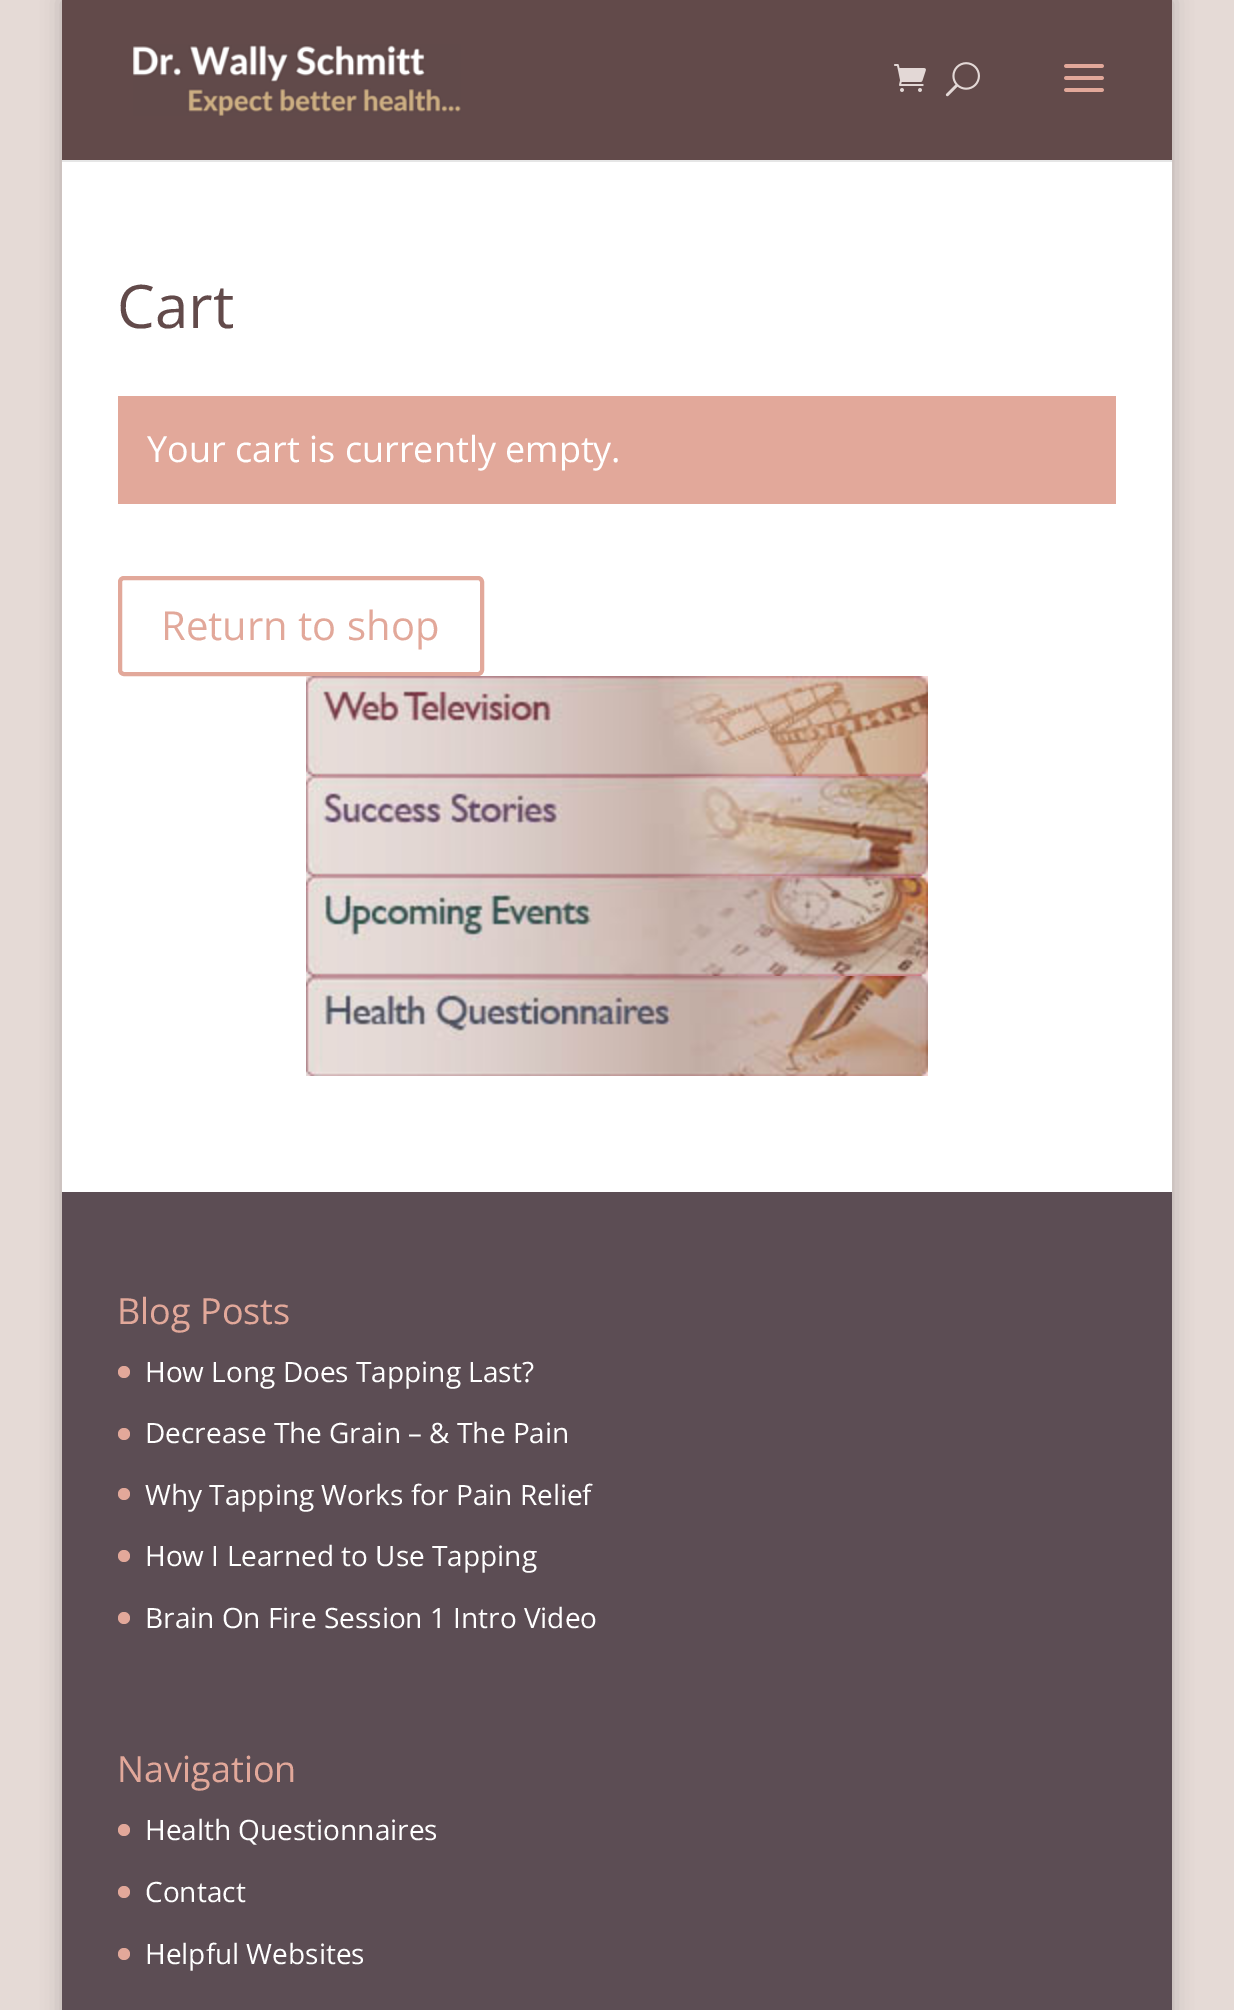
%!PS
<< /PageSize [1234 2010] /PageUsesTransparency true >> setpagedevice
/rgb { 3 { 255 div 3 1 roll } repeat setrgbcolor } def
/font { [ exch dup neg 0 0 3 -1 roll 0 0 ] selectfont } def
/alpha { dup .setfillconstantalpha .setstrokeconstantalpha } def
/circle { newpath 0 360 arc closepath } def
/roundrect { 5 dict begin { /r /h /w /y /x } { exch def } forall
  x r add y moveto x w add y 2 copy h add r arct x w add y h add x 1 index r arct
  x y h add x y r arct x y 2 copy exch w add exch r arct closepath end } def
/shadow { 12 dict begin { /a /b /q /h /w /y /x } { exch def } forall gsave /was 0 def
  9 -2 -9 { dup b mul 4 div /e exch def 1 sub .425 mul 2.718 exch exp 1 add a .99 .min exch div /now exch def
    1 1 now sub 1 was sub div sub alpha /was now def
    w h .min e 2 mul add 0 gt { x e sub y e sub w e 2 mul add h e 2 mul add
      q e add b .6 mul add w h .min 2 div e add .min 0 .max roundrect fill } if } for grestore end } def
/picture { 5 dict begin { /h /w /y /x /name } { exch def } forall
  gsave x y translate w h scale
  w h 8 [w 0 0 h 0 0] name (r) file false 3 colorimage grestore end } def
0 .pushpdf14devicefilter
0 2010 translate 1 -1 scale
4 setmiterlimit
229 218 214 rgb
0 0 1234 2010 rectfill
0 0 0 rgb
62 0 1110 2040 0 10 0.2 shadow
230 230 230 rgb
62 160 1110 2 rectfill
98 74 74 rgb
62 0 1110 160 rectfill
(img/1.rgb) 133 44 328 72 picture
(img/2.rgb) 894 64 32 28 picture
(img/3.rgb) 945 62 35 35 picture
(img/4.rgb) 1064 64 40 28 picture
255 255 255 rgb
62 162 1110 1030 rectfill
226 168 154 rgb
118 396 998 108 rectfill
4 setlinewidth
120 578 362 96 4 roundrect stroke
(img/5.rgb) 306 676 622 100 picture
(img/6.rgb) 306 776 622 100 picture
(img/7.rgb) 306 876 622 100 picture
(img/8.rgb) 306 976 622 100 picture
92 77 84 rgb
62 1192 1110 818 rectfill
226 168 154 rgb
124 1372 6 circle fill
124 1434 6 circle fill
124 1494 6 circle fill
124 1556 6 circle fill
124 1618 6 circle fill
124 1830 6 circle fill
124 1892 6 circle fill
124 1954 6 circle fill
/OpenSans-Regular 60 font
98 74 74 rgb
117 328 moveto (Cart) show
/OpenSans-Regular 36 font
255 255 255 rgb
147 462 moveto (Your cart is currently empty.) show
/OpenSans-Regular 40 font
226 168 154 rgb
161 640 moveto (Return to shop) show
/OpenSans-Regular 36 font
117 1324 moveto (Blog Posts) show
/OpenSans-Regular 28 font
255 255 255 rgb
[
  [(How Long Does Tapping Last?) 145 1382]
  [(Decrease The Grain – & The Pain) 145 1443]
  [(Why Tapping Works for Pain Relief) 145 1505]
  [(How I Learned to Use Tapping) 145 1566]
  [(Brain On Fire Session 1 Intro Video) 145 1628]
] { aload pop moveto show } forall
/OpenSans-Regular 36 font
226 168 154 rgb
117 1782 moveto (Navigation) show
/OpenSans-Regular 28 font
255 255 255 rgb
[
  [(Health Questionnaires) 145 1840]
  [(Contact) 145 1902]
  [(Helpful Websites) 145 1964]
] { aload pop moveto show } forall
.poppdf14devicefilter showpage
